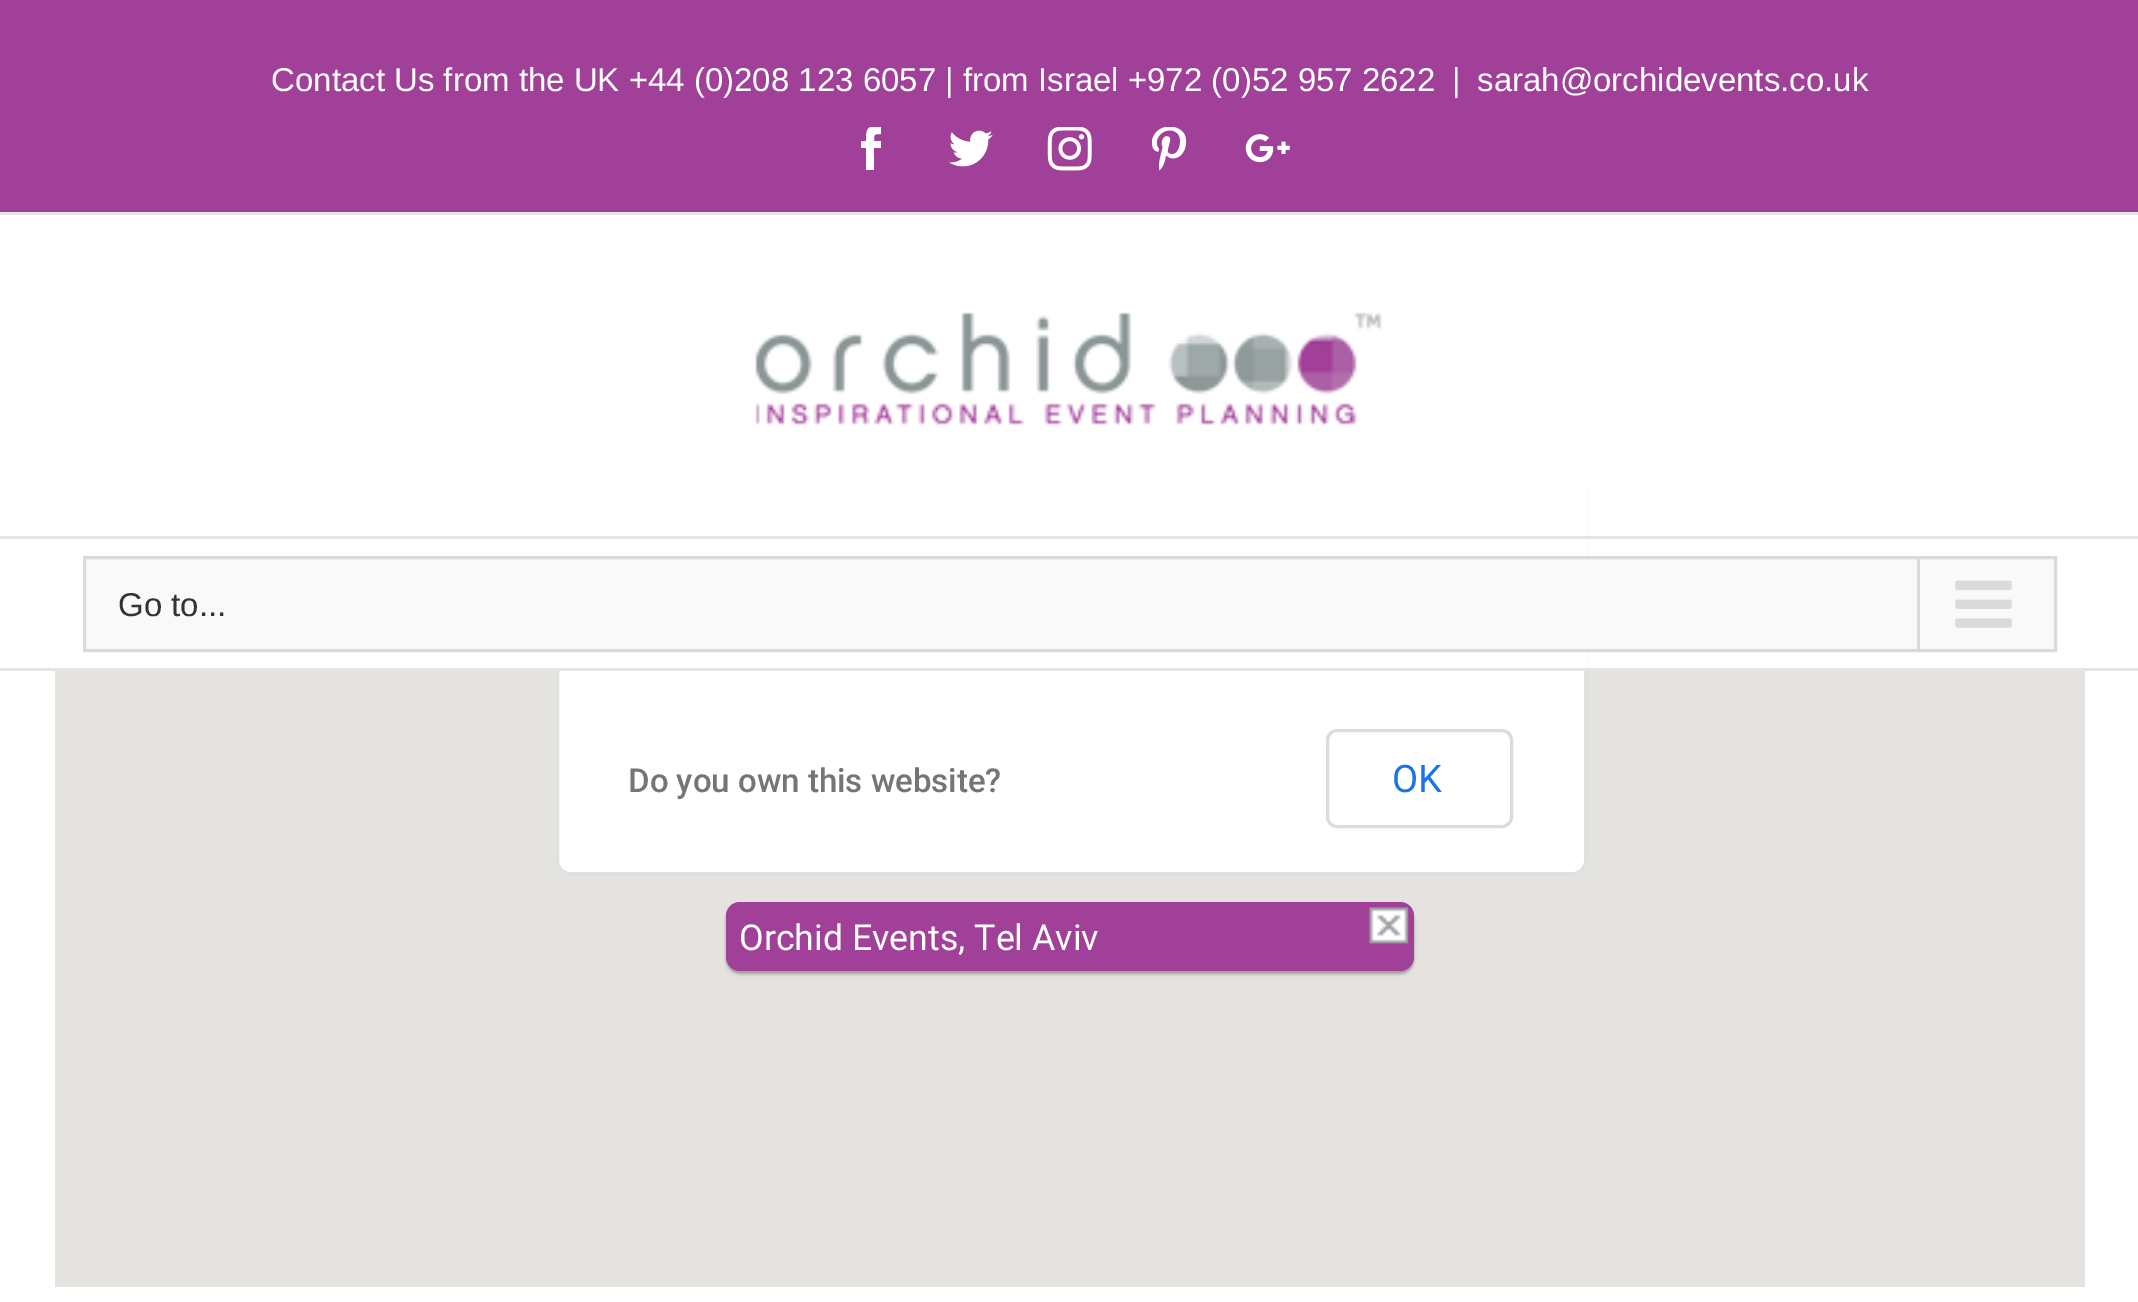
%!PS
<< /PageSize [2138 1302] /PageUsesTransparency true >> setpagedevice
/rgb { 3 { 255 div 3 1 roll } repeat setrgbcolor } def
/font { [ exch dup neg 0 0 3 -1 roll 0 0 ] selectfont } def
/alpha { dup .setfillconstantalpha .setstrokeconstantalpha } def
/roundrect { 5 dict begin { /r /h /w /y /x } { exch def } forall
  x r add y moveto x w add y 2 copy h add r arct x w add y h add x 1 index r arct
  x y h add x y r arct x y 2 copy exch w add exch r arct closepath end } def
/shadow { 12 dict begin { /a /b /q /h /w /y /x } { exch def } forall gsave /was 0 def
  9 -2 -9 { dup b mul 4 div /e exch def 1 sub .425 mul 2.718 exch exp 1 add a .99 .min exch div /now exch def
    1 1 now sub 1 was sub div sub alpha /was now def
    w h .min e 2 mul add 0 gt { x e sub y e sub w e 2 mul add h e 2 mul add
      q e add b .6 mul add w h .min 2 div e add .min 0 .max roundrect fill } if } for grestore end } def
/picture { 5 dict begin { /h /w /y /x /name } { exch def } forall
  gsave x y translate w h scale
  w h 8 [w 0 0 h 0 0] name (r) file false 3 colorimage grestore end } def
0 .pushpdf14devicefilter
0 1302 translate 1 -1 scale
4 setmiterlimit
255 255 255 rgb
0 0 2138 1302 rectfill
161 64 152 rgb
0 0 2138 212 rectfill
229 229 229 rgb
0 212 2138 3 rectfill
gsave
28 127 2084 57 rectclip
255 255 255 rgb
874 170 moveto 866 170 lineto 866 148 lineto 861 148 lineto 861 141 lineto 866 141 lineto 866 127 868 126 881 126 curveto 881 134 lineto 874 134 874 134 874 141 curveto 881 141 lineto 881 148 lineto 874 148 lineto closepath fill
grestore
(img/1.rgb) 949 130 44 37 picture
(img/2.rgb) 1047 127 45 44 picture
(img/3.rgb) 1151 127 36 44 picture
(img/4.rgb) 1245 134 45 29 picture
229 227 223 rgb
55 671 2030 616 rectfill
255 255 255 rgb
556 476 1031 399 14 roundrect fill
0.12 alpha
0 0 0 rgb
3 setlinewidth
557.5 477.5 1028 396 12.5 roundrect stroke
1 alpha
255 255 255 rgb
556 476 1031 60 rectfill
229 229 229 rgb
0 536 2138 3 rectfill
(img/5.rgb) 755 312 627 113 picture
255 255 255 rgb
556 539 1031 129 rectfill
229 229 229 rgb
0 668 2138 3 rectfill
249 249 249 rgb
84.5 557.5 moveto 2055.5 557.5 lineto 2055.5 650.5 lineto 84.5 650.5 lineto closepath gsave fill grestore
218 218 218 rgb
stroke
1917 558 3 91 rectfill
(img/6.rgb) 1955 580 57 48 picture
218 220 224 rgb
1327.5 730.5 184 96 9.5 roundrect stroke
0 0 0 rgb
726 905 688 69 14 1.5 0.3 shadow
161 64 152 rgb
726 902 688 69 14 roundrect fill
(img/7.rgb) 1368 907 41 37 picture
/LiberationSans-Regular 33 font
255 255 255 rgb
[
  [(Contact Us from the UK +44 \(0\)208 123 6057 | from Israel +972 \(0\)52 957 2622) 271 91]
  [(|) 1452 91]
  [(sarah@orchidevents.co.uk) 1477 91]
] { aload pop moveto show } forall
51 51 51 rgb
118 616 moveto (Go to...) show
/Roboto-Medium 33 font
117 117 117 rgb
628 792 moveto (Do you own this website?) show
/Roboto-Regular 38 font
26 115 232 rgb
1392 792 moveto (OK) show
/Roboto-Regular 35.75 font
255 255 255 rgb
739 950 moveto (Orchid Events, Tel Aviv) show
.poppdf14devicefilter showpage
